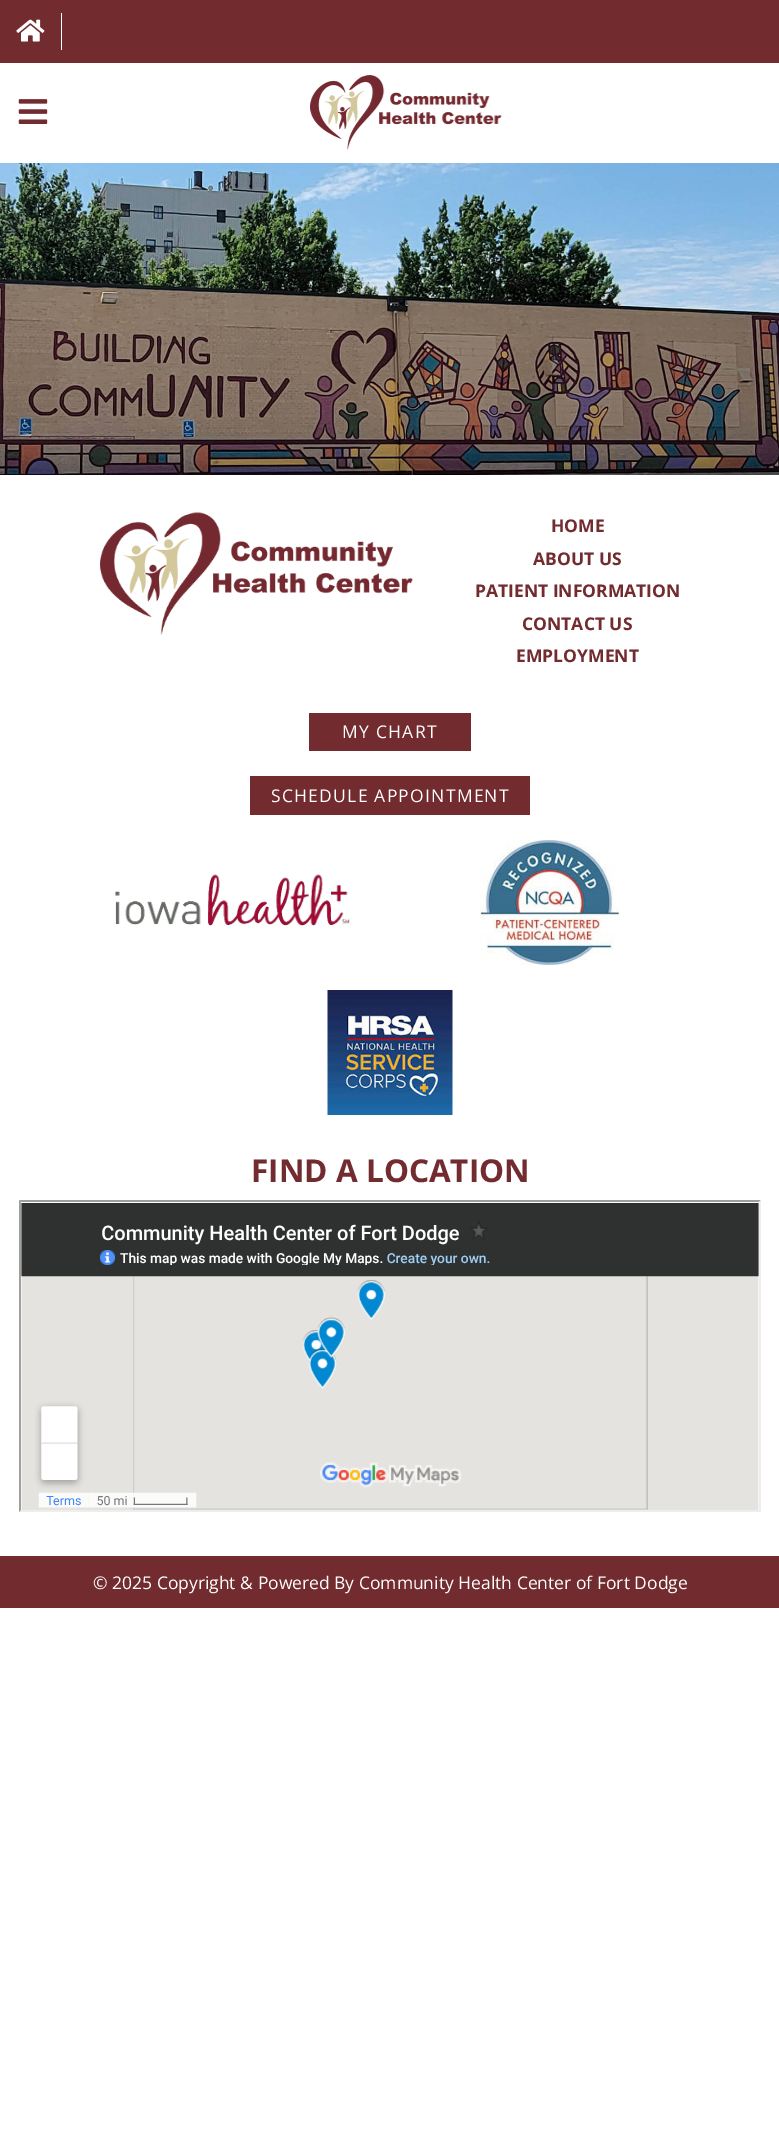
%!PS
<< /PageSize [779 2152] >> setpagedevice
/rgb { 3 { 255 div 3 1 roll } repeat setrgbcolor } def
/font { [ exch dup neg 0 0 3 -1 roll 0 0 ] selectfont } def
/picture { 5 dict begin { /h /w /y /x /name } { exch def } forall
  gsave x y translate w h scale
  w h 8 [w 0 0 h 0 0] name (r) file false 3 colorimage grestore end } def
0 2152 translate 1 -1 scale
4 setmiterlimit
255 255 255 rgb
0 0 779 2152 rectfill
114 43 46 rgb
0 0 779 63 rectfill
255 255 255 rgb
61 13 1 37 rectfill
(img/1.rgb) 16 19 29 23 picture
(img/2.rgb) 18 99 30 25 picture
(img/3.rgb) 310 75 192 75 picture
(img/4.rgb) 0 163 779 312 picture
(img/5.rgb) 100 512 313 123 picture
114 43 46 rgb
309 713 162 38 rectfill
250 776 280 39 rectfill
(img/6.rgb) 115 874 235 52 picture
(img/7.rgb) 480 840 139 125 picture
(img/8.rgb) 327 990 126 125 picture
159 159 159 rgb
19 1200 moveto 761 1200 lineto 759 1202 lineto 21 1202 lineto closepath fill
238 238 238 rgb
761 1200 moveto 761 1512 lineto 759 1510 lineto 759 1202 lineto closepath fill
761 1512 moveto 19 1512 lineto 21 1510 lineto 759 1510 lineto closepath fill
159 159 159 rgb
19 1512 moveto 19 1200 lineto 21 1202 lineto 21 1510 lineto closepath fill
(img/9.rgb) 21 1202 738 308 picture
114 43 46 rgb
0 1556 779 52 rectfill
/OpenSans-Bold 17.5 font
[
  [(HOME) 551 532]
  [(ABOUT US) 533 565]
  [(PATIENT INFORMATION) 475 597]
  [(CONTACT US) 522 630]
  [(EMPLOYMENT) 516 662]
] { aload pop moveto show } forall
/OpenSans-Regular 17.5 font
255 255 255 rgb
342 738 moveto 1.25 0 (MY CHART) ashow
271 802 moveto 1.25 0 (SCHEDULE APPOINTMENT) ashow
/OpenSans-Bold 31.5 font
114 43 46 rgb
251 1182 moveto (FIND A LOCATION) show
/OpenSans-Regular 17.5 font
255 255 255 rgb
93 1589 moveto (© 2025 Copyright & Powered By Community Health Center of Fort Dodge) show
showpage
